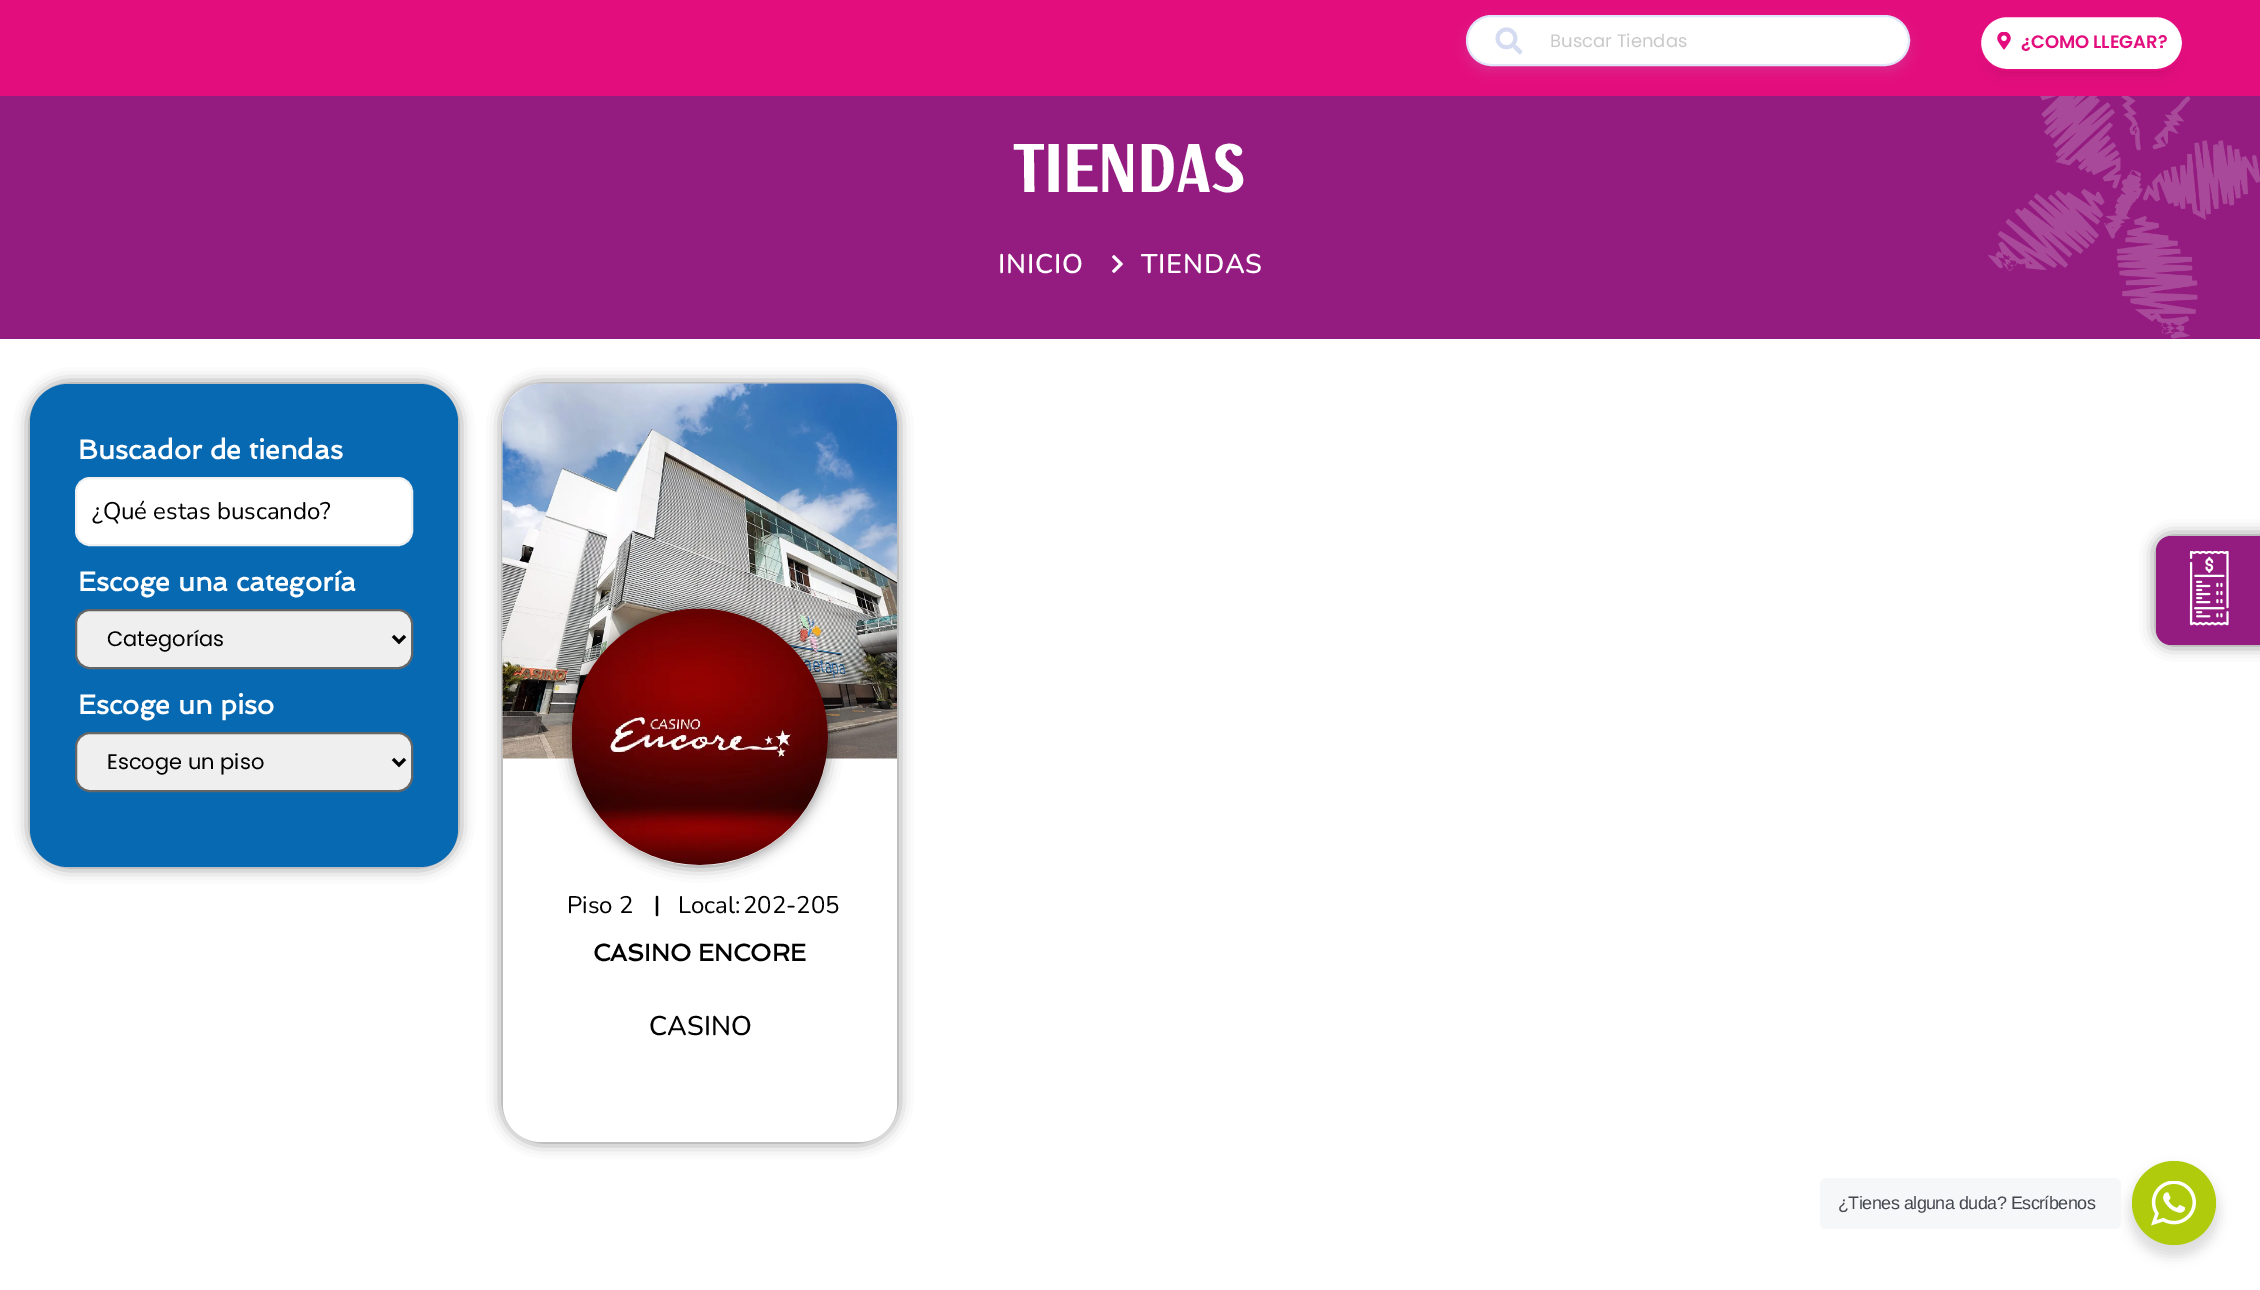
%!PS
<< /PageSize [2260 1290] /PageUsesTransparency true >> setpagedevice
/rgb { 3 { 255 div 3 1 roll } repeat setrgbcolor } def
/font { [ exch dup neg 0 0 3 -1 roll 0 0 ] selectfont } def
/alpha { dup .setfillconstantalpha .setstrokeconstantalpha } def
/circle { newpath 0 360 arc closepath } def
/roundrect { 5 dict begin { /r /h /w /y /x } { exch def } forall
  x r add y moveto x w add y 2 copy h add r arct x w add y h add x 1 index r arct
  x y h add x y r arct x y 2 copy exch w add exch r arct closepath end } def
/shadow { 12 dict begin { /a /b /q /h /w /y /x } { exch def } forall gsave /was 0 def
  9 -2 -9 { dup b mul 4 div /e exch def 1 sub .425 mul 2.718 exch exp 1 add a .99 .min exch div /now exch def
    1 1 now sub 1 was sub div sub alpha /was now def
    w h .min e 2 mul add 0 gt { x e sub y e sub w e 2 mul add h e 2 mul add
      q e add b .6 mul add w h .min 2 div e add .min 0 .max roundrect fill } if } for grestore end } def
/picture { 5 dict begin { /h /w /y /x /name } { exch def } forall
  gsave x y translate w h scale
  w h 8 [w 0 0 h 0 0] name (r) file false 3 colorimage grestore end } def
0 .pushpdf14devicefilter
0 1290 translate 1 -1 scale
4 setmiterlimit
255 255 255 rgb
0 0 2260 1290 rectfill
227 13 125 rgb
0 0 2260 96 rectfill
165 174 213 rgb
1466 21 444 51 25.5 6 0.15 shadow
255 255 255 rgb
1467 16 442 49 24.5 roundrect gsave fill grestore
224 229 248 rgb
2 setlinewidth
stroke
(img/1.rgb) 1495 27 28 28 picture
0 0 0 rgb
1994 45 175 26 13 7.5 0.15 shadow
255 255 255 rgb
1980 16 203 54 27 roundrect gsave fill grestore
227 13 125 rgb
stroke
(img/2.rgb) 1997 32 14 18 picture
148 28 129 rgb
0 96 2260 243 rectfill
(img/3.rgb) 1112 255 11 18 picture
(img/4.rgb) 1988 96 272 243 picture
0 0 0 rgb
30 384 428 483 38 7.5 0.5 shadow
8 105 179 rgb
30 384 428 483 38 roundrect fill
255 255 255 rgb
76 478 336 67 14 roundrect gsave fill grestore
240 240 240 rgb
stroke
239 239 239 rgb
76 610 336 58 14 roundrect gsave fill grestore
102 102 102 rgb
stroke
0 0 0 rgb
3 setlinewidth
393 636 moveto 399 642 lineto 405 636 lineto stroke
239 239 239 rgb
76 733 336 58 14 roundrect gsave fill grestore
102 102 102 rgb
2 setlinewidth
stroke
0 0 0 rgb
3 setlinewidth
393 759 moveto 399 765 lineto 405 759 lineto stroke
503 384 394 758 38 7.5 0.5 shadow
255 255 255 rgb
503 384 394 758 38 roundrect fill
503 384 394 728 39 roundrect fill
(img/5.rgb) 502 383 395 376 picture
0 0 0 rgb
572 609 256 257 128 7.5 0.5 shadow
(img/6.rgb) 571 608 257 257 picture
2.2 setlinewidth
1 setlinecap
1 setlinejoin
657 897 moveto 657 915 lineto stroke
2156 536 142 109 15 7.5 0.5 shadow
148 28 129 rgb
2156 536 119 109 15 roundrect fill
(img/7.rgb) 2189 551 40 75 picture
0 0 0 rgb
2129 1167 90 90 45 6 0.14 shadow
245 247 249 rgb
1820 1178 301 51 6 roundrect fill
175 203 12 rgb
2174 1203 42 circle fill
(img/8.rgb) 2151 1181 45 45 picture
/Poppins-Regular 18 font
201 201 201 rgb
1550 47 moveto (Buscar Tiendas) show
/Poppins-SemiBold 18 font
227 13 125 rgb
2021 48 moveto (¿COMO LLEGAR?) show
/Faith-Bold 66 font
255 255 255 rgb
1014 192 moveto 3 0 (TIENDAS) ashow
/Nunito-SemiBold 27 font
998 273 moveto 0.75 0 (INICIO) ashow
1141 273 moveto 0.75 0 (TIENDAS) ashow
/Spinnaker-Bold 27 font
78 459 moveto (Buscador de tiendas) show
/Nunito-Regular 24 font
0 0 0 rgb
92 519 moveto (¿Qué estas buscando?) show
/Spinnaker-Bold 27 font
255 255 255 rgb
78 591 moveto (Escoge una categoría) show
/Poppins-Regular 21 font
0 0 0 rgb
107 646 moveto (Categorías) show
/Spinnaker-Bold 27 font
255 255 255 rgb
78 714 moveto (Escoge un piso) show
/Poppins-Regular 21 font
0 0 0 rgb
107 769 moveto (Escoge un piso) show
/Nunito-Regular 24 font
[
  [(Piso 2) 567 913]
  [(Local:) 678 913]
  [(202-205) 743 913]
] { aload pop moveto show } forall
/Spinnaker-Bold 24 font
593 961 moveto (CASINO ENCORE) show
/Nunito-Medium 27 font
649 1035 moveto (CASINO) show
/LiberationSans-Regular 18 font
67 71 78 rgb
1838 1209 moveto -0.55 0 (¿Tienes alguna duda? Escríbenos) ashow
.poppdf14devicefilter showpage
